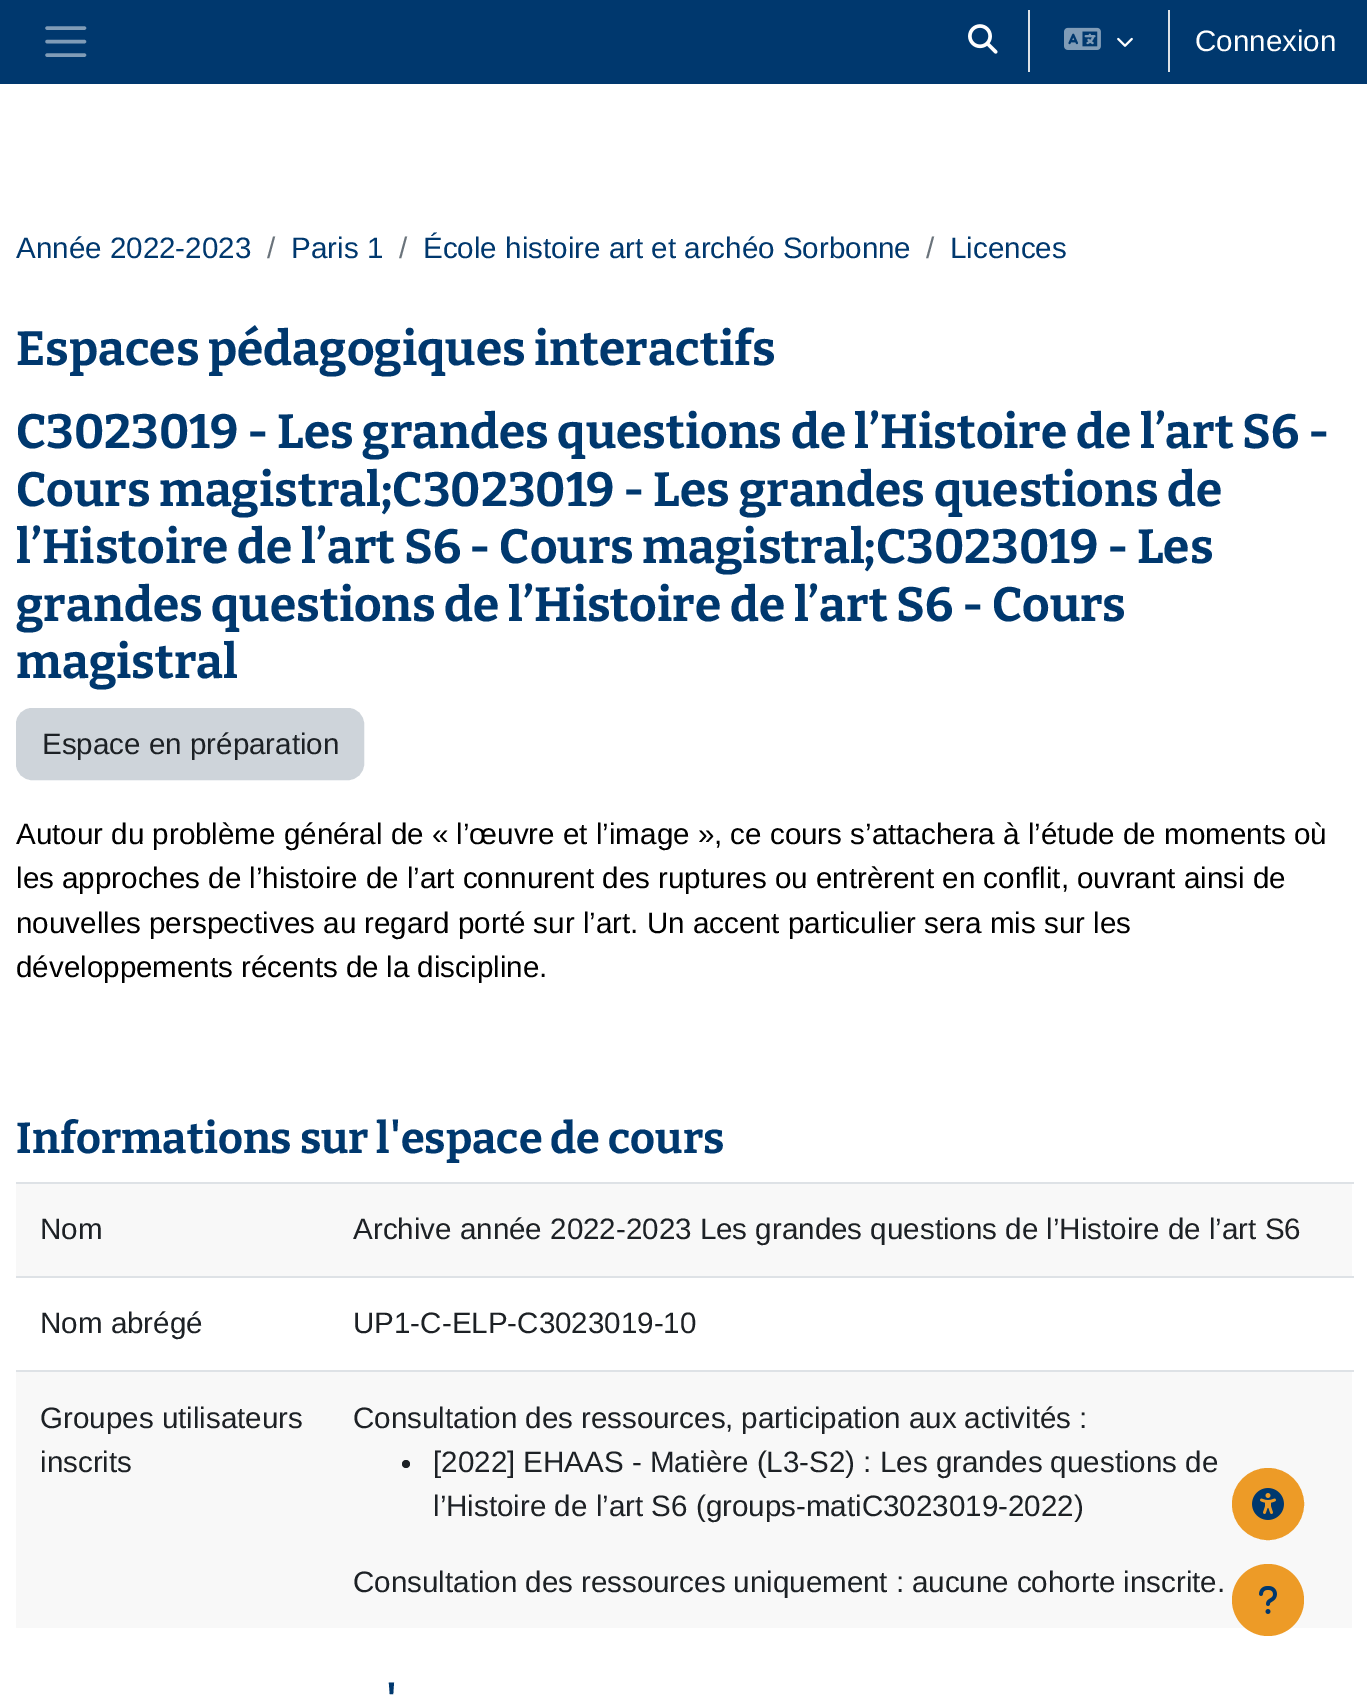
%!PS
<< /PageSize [1367 1699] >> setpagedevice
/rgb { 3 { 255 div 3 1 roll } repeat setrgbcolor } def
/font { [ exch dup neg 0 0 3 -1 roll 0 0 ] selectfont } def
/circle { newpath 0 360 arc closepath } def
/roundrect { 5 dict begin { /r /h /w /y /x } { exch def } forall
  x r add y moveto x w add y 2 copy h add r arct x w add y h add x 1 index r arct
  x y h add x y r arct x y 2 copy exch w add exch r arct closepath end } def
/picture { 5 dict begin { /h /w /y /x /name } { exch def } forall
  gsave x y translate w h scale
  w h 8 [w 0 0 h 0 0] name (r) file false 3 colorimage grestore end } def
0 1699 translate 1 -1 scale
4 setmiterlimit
255 255 255 rgb
0 0 1367 1699 rectfill
0 56 110 rgb
0 0 1367 84 rectfill
128 156 183 rgb
3.4 setlinewidth
1 setlinecap
47 28 moveto 84.5 28 lineto 47 41.5 moveto 84.5 41.5 lineto 47 55 moveto 84.5 55 lineto stroke
(img/1.rgb) 968 24 30 30 picture
222 226 230 rgb
1028 10 2 62 rectfill
(img/2.rgb) 1064 27 37 23 picture
(img/3.rgb) 1117 37 16 10 picture
1168 10 2 62 rectfill
206 212 218 rgb
17 709 346 70 15 roundrect gsave fill grestore
2 setlinewidth
0 setlinecap
stroke
[
  [16 1184 1336 92 248 248 248]
  [16 1182 1338 2 222 226 230]
  [16 1276 1338 2 222 226 230]
  [16 1372 1336 256 248 248 248]
  [16 1370 1338 2 222 226 230]
] { aload pop rgb rectfill } forall
29 33 37 rgb
406 1464 4 circle fill
237 155 39 rgb
1268 1504 35 circle gsave fill grestore
stroke
(img/4.rgb) 1252 1488 32 32 picture
1268 1600 36 circle fill
(img/5.rgb) 1259 1586 18 28 picture
/LiberationSans-Regular 29.55 font
255 255 255 rgb
1195 51 moveto (Connexion) show
0 56 110 rgb
16 258 moveto (Année 2022-2023) show
106 115 123 rgb
267 258 moveto (/) show
0 56 110 rgb
291 258 moveto (Paris 1) show
106 115 123 rgb
399 258 moveto (/) show
0 56 110 rgb
423 258 moveto (École histoire art et archéo Sorbonne) show
106 115 123 rgb
926 258 moveto (/) show
0 56 110 rgb
950 258 moveto (Licences) show
/Bitter-Bold 47.9 font
[
  [(Espaces pédagogiques interactifs) 16 365]
  [(C3023019 - Les grandes questions de l’Histoire de l’art S6 -) 16 448]
  [(Cours magistral;C3023019 - Les grandes questions de) 16 506]
  [(l’Histoire de l’art S6 - Cours magistral;C3023019 - Les) 16 563]
  [(grandes questions de l’Histoire de l’art S6 - Cours) 16 621]
  [(magistral) 16 678]
] { aload pop moveto show } forall
/LiberationSans-Regular 29.55 font
29 33 37 rgb
42 754 moveto (Espace en préparation) show
0 0 0 rgb
[
  [(Autour du problème général de « l’œuvre et l’image », ce cours s’attachera à l’étude de moments où) 16 844]
  [(les approches de l’histoire de l’art connurent des ruptures ou entrèrent en conflit, ouvrant ainsi de) 16 888]
  [(nouvelles perspectives au regard porté sur l’art. Un accent particulier sera mis sur les) 16 933]
] { aload pop moveto show } forall
16 977 moveto -0.25 0 32 (développements récents de la discipline.) widthshow
/Bitter-Bold 43.3 font
0 56 110 rgb
16 1153 moveto (Informations sur l'espace de cours) show
/LiberationSans-Regular 29.55 font
29 33 37 rgb
[
  [(Nom) 40 1239]
  [(Archive année 2022-2023 Les grandes questions de l’Histoire de l’art S6) 353 1239]
  [(Nom abrégé) 40 1333]
  [(UP1-C-ELP-C3023019-10) 353 1333]
  [(Groupes utilisateurs) 40 1428]
  [(inscrits) 40 1472]
] { aload pop moveto show } forall
353 1428 moveto -0.25 0 32 (Consultation des ressources, participation aux activités :) widthshow
433 1472 moveto ([2022] EHAAS - Matière \(L3-S2\) : Les grandes questions de) show
433 1516 moveto (l’Histoire de l’art S6 \(groups-matiC3023019-2022\)) show
353 1592 moveto -0.25 0 32 (Consultation des ressources uniquement : aucune cohorte inscrite.) widthshow
/Bitter-Bold 43.3 font
0 56 110 rgb
386 1716 moveto (') show
showpage
